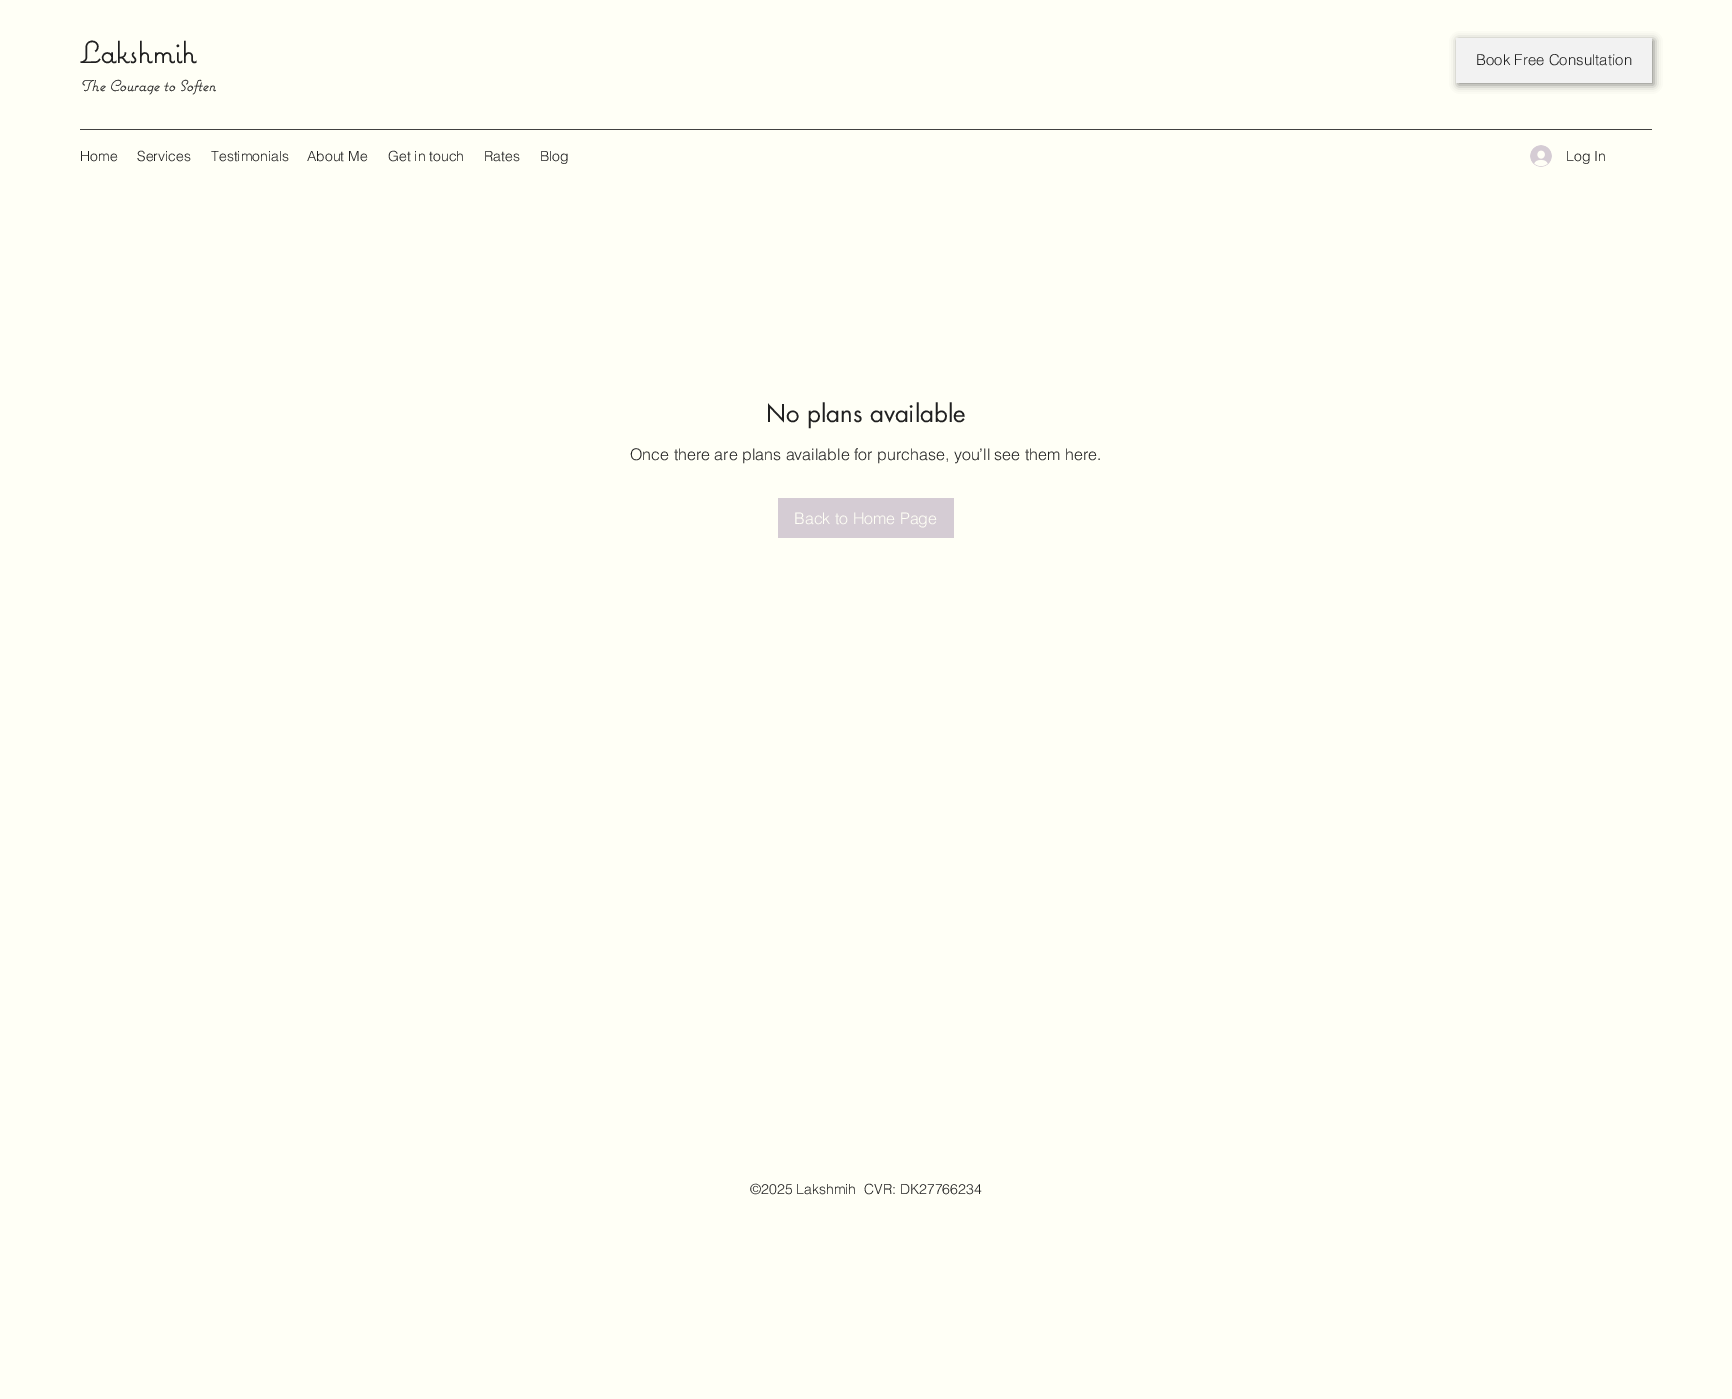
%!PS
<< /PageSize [1732 1399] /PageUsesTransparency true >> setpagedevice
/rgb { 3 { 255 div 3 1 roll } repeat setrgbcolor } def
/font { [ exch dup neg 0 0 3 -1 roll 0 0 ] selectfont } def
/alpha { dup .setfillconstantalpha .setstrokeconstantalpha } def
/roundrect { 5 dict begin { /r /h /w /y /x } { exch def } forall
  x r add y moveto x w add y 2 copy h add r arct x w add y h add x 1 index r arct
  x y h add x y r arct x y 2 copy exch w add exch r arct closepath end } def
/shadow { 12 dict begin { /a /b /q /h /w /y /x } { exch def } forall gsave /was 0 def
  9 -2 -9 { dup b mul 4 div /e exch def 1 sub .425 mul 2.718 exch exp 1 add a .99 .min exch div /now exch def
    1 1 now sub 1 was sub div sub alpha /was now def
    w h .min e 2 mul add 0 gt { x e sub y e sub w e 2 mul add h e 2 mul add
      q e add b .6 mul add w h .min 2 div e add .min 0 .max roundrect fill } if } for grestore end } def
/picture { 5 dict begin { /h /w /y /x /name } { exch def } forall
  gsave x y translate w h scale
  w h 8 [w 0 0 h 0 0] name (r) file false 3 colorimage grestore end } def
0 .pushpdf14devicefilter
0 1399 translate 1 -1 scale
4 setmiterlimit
255 255 246 rgb
0 0 1732 1399 rectfill
0 0 0 rgb
1458 40 196 45 0 4 0.45 shadow
242 242 242 rgb
1456 38 196 45 rectfill
65 65 64 rgb
80 129 1572 1 rectfill
(img/1.rgb) 1530 145 22 22 picture
213 204 212 rgb
778 498 176 40 rectfill
/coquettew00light-Bold 30 font
32 32 32 rgb
80 63 moveto (Lakshmih) show
/coquettew00light-BoldItalic 15 font
80 91 moveto (The Courage to Soften) show
/helvetica-Light 15 font
1476 65 moveto (Book Free Consultation) show
/helvetica-Light 14 font
[
  [(Home) 80 161]
  [(Services) 137 161]
  [(Testimonials) 211 161]
  [(About Me) 307 161]
  [(Get in touch) 388 161]
  [(Rates) 484 161]
  [(Blog) 540 161]
  [(Log In) 1566 161]
] { aload pop moveto show } forall
/futura-Regular 24 font
766 422 moveto (No plans available) show
/helvetica-Light 16 font
630 460 moveto (Once there are plans available for purchase, you’ll see them here.) show
255 255 246 rgb
794 524 moveto (Back to Home Page) show
/helvetica-Light 14 font
32 32 32 rgb
750 1194 moveto (©2025 Lakshmih  CVR: DK27766234) show
.poppdf14devicefilter showpage
